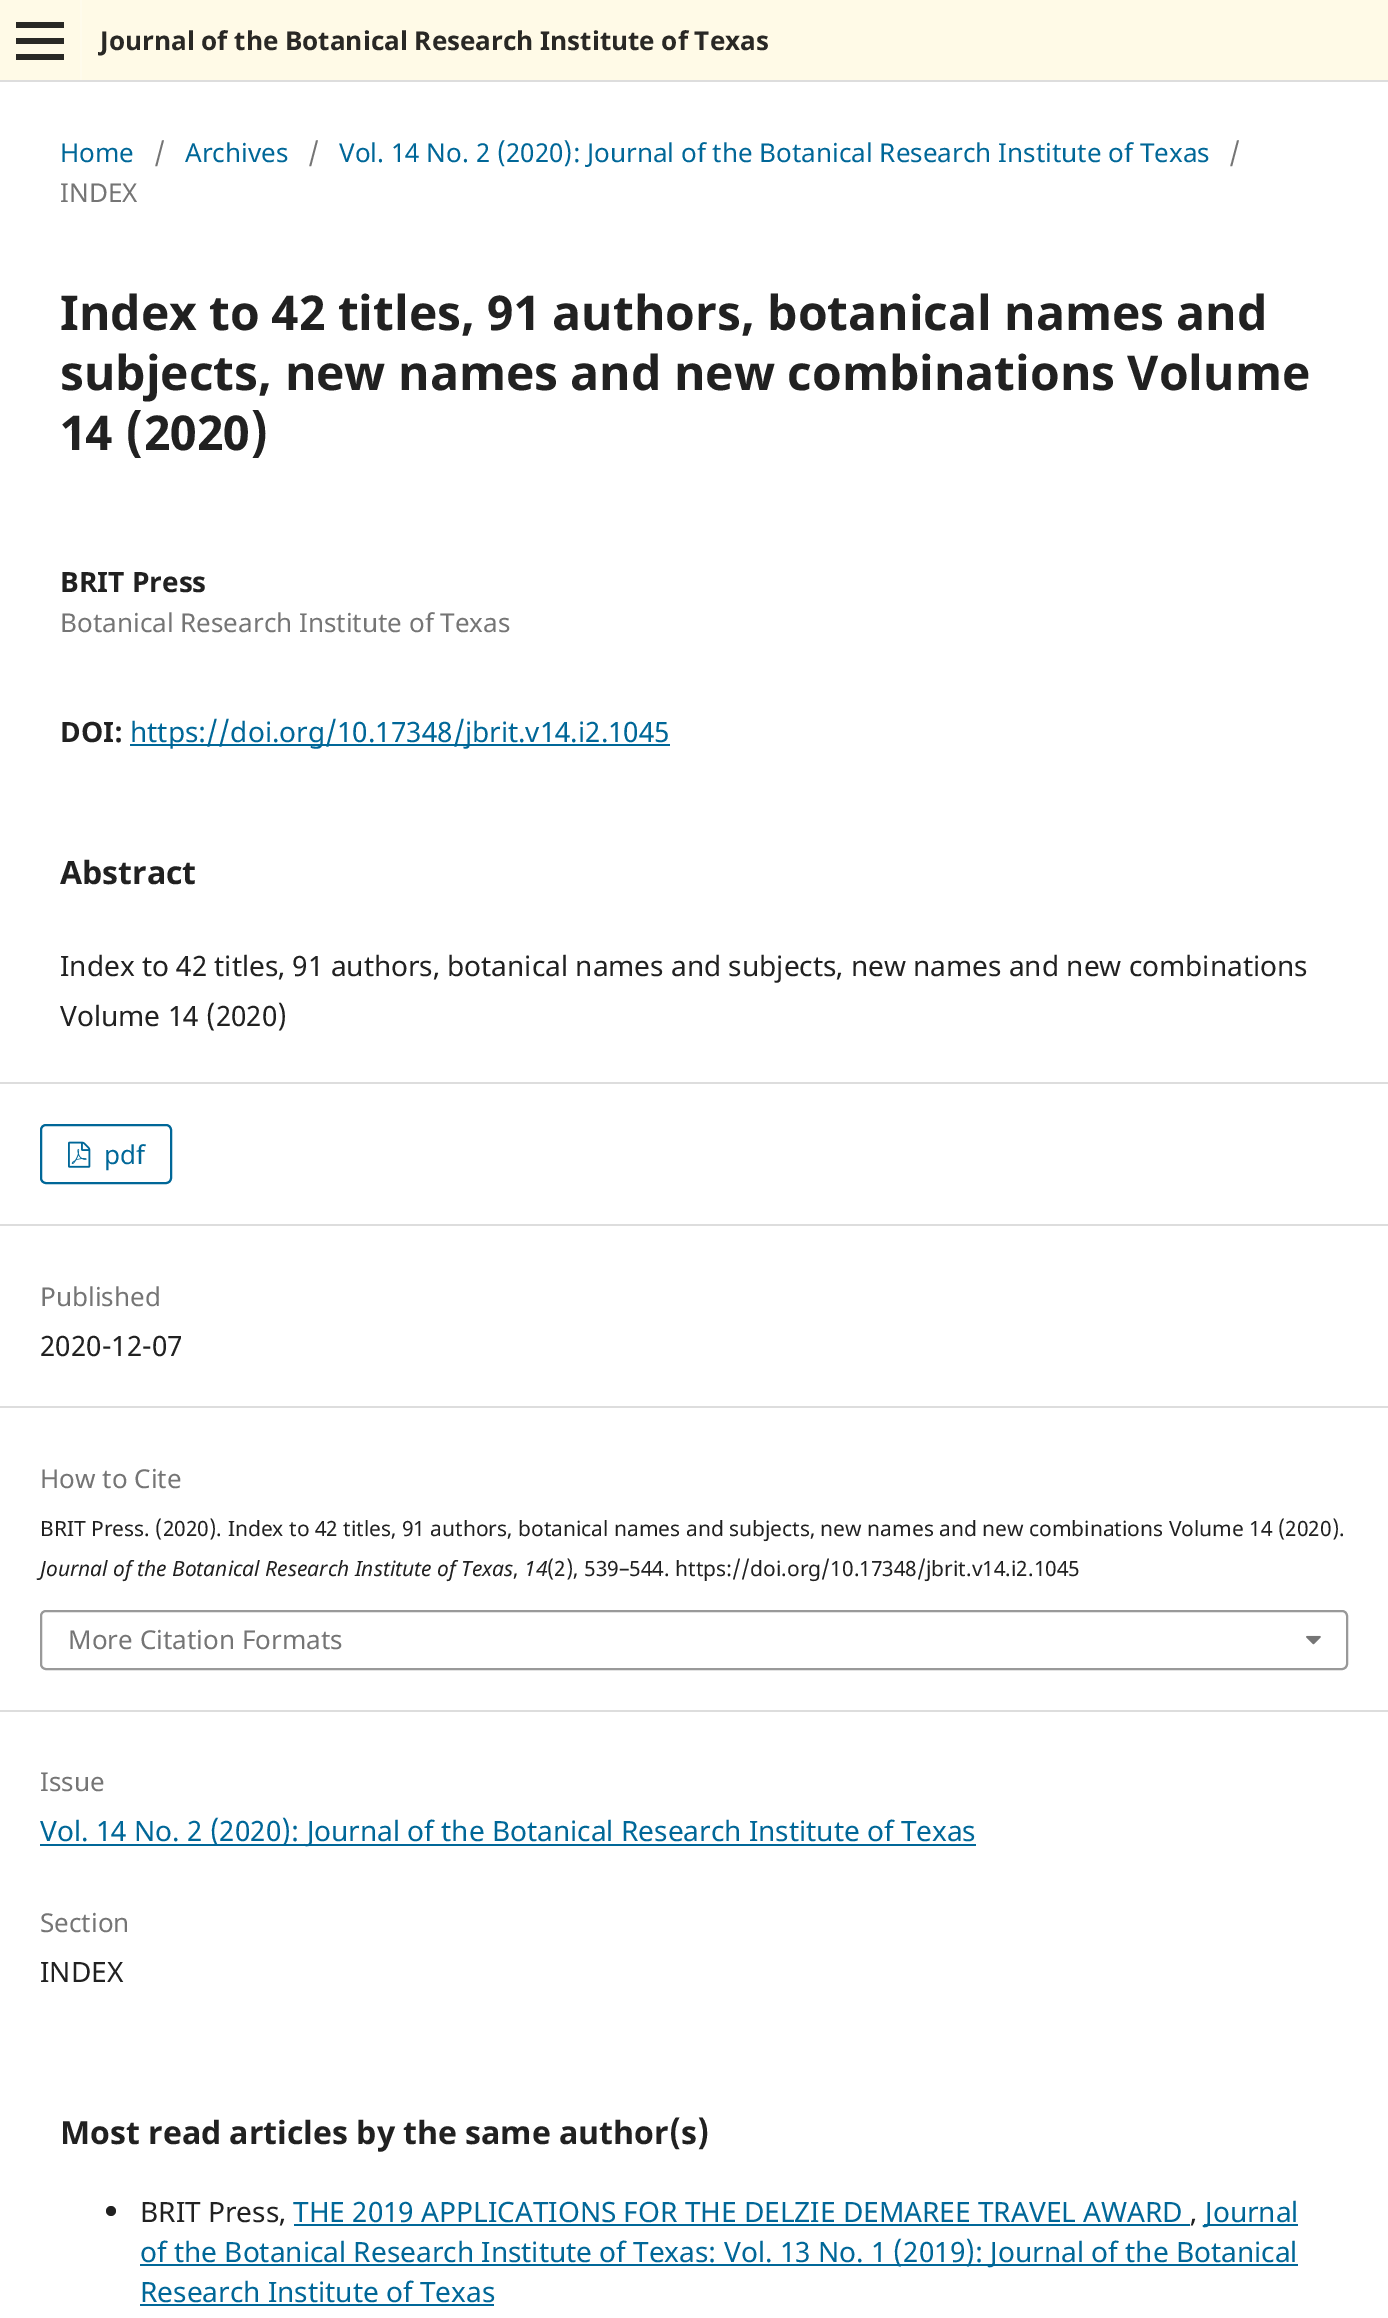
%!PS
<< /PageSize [1388 2318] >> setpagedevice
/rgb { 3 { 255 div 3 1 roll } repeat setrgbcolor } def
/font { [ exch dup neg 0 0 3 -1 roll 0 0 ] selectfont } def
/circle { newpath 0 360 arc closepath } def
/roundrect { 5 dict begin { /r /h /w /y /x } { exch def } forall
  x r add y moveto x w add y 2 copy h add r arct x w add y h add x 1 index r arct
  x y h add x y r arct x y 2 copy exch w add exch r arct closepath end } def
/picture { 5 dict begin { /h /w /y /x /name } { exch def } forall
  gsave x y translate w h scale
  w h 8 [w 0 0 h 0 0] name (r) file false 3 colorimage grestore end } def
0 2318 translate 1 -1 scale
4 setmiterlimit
255 255 255 rgb
0 0 1388 2318 rectfill
[
  [0 0 1388 80 255 250 231]
  [0 80 1388 2 221 221 221]
  [80 0 2 80 255 251 236]
  [16 54 48 6 41 40 37]
  [16 22 48 6 41 40 37]
  [16 38 48 6 41 40 37]
  [130 744 540 2 0 103 152]
  [0 1082 1388 2 221 221 221]
  [0 1224 1388 2 221 221 221]
] { aload pop rgb rectfill } forall
0 103 152 rgb
2 setlinewidth
41 1125 130 58 5 roundrect stroke
(img/1.rgb) 68 1141 23 27 picture
221 221 221 rgb
0 1406 1388 2 rectfill
0 1710 1388 2 rectfill
153 153 153 rgb
41 1611 1306 58 5 roundrect stroke
(img/2.rgb) 1306 1635 15 10 picture
0 103 152 rgb
40 1844 936 2 rectfill
33 33 33 rgb
111 2211 5 circle fill
[
  [294 2224 896 2 0 103 152]
  [1204 2224 94 2 0 103 152]
  [140 2264 1158 2 0 103 152]
  [140 2304 354 2 0 103 152]
] { aload pop rgb rectfill } forall
/NotoSans-Bold 26.05 font
41 40 37 rgb
100 50 moveto (Journal of the Botanical Research Institute of Texas) show
/NotoSans-Regular 26.05 font
0 103 152 rgb
60 162 moveto (Home) show
117 117 117 rgb
154 162 moveto (/) show
0 103 152 rgb
185 162 moveto (Archives) show
117 117 117 rgb
308 162 moveto (/) show
0 103 152 rgb
339 162 moveto (Vol. 14 No. 2 \(2020\): Journal of the Botanical Research Institute of Texas) show
117 117 117 rgb
1229 162 moveto (/) show
60 202 moveto (INDEX) show
/NotoSans-Bold 48 font
33 33 33 rgb
[
  [(Index to 42 titles, 91 authors, botanical names and) 60 330]
  [(subjects, new names and new combinations Volume) 60 390]
  [(14 \(2020\)) 60 450]
] { aload pop moveto show } forall
/NotoSans-Bold 28 font
60 592 moveto (BRIT Press) show
/NotoSans-Regular 26.05 font
117 117 117 rgb
60 632 moveto (Botanical Research Institute of Texas) show
/NotoSans-Bold 28 font
33 33 33 rgb
60 742 moveto (DOI:) show
/NotoSans-Regular 28 font
0 103 152 rgb
130 742 moveto (https://doi.org/10.17348/jbrit.v14.i2.1045) show
/NotoSans-Bold 32 font
33 33 33 rgb
60 884 moveto (Abstract) show
/NotoSans-Regular 28 font
60 976 moveto (Index to 42 titles, 91 authors, botanical names and subjects, new names and new combinations) show
60 1026 moveto (Volume 14 \(2020\)) show
/NotoSans-Regular 26.05 font
0 103 152 rgb
104 1164 moveto (pdf) show
117 117 117 rgb
40 1306 moveto (Published) show
/NotoSans-Regular 28 font
33 33 33 rgb
40 1356 moveto (2020-12-07) show
/NotoSans-Regular 26.05 font
117 117 117 rgb
40 1488 moveto (How to Cite) show
/NotoSans-Regular 21 font
33 33 33 rgb
40 1536 moveto (BRIT Press. \(2020\). Index to 42 titles, 91 authors, botanical names and subjects, new names and new combinations Volume 14 \(2020\).) show
/NotoSans-Italic 21 font
40 1576 moveto (Journal of the Botanical Research Institute of Texas) show
/NotoSans-Regular 21 font
513 1576 moveto (,) show
/NotoSans-Italic 21 font
524 1576 moveto (14) show
/NotoSans-Regular 21 font
547 1576 moveto (\(2\), 539–544. https://doi.org/10.17348/jbrit.v14.i2.1045) show
/NotoSans-Regular 26.05 font
117 117 117 rgb
68 1649 moveto (More Citation Formats) show
40 1791 moveto (Issue) show
/NotoSans-Regular 28 font
0 103 152 rgb
40 1841 moveto (Vol. 14 No. 2 \(2020\): Journal of the Botanical Research Institute of Texas) show
/NotoSans-Regular 26.05 font
117 117 117 rgb
40 1932 moveto (Section) show
/NotoSans-Regular 28 font
33 33 33 rgb
40 1982 moveto (INDEX) show
/NotoSans-Bold 32 font
60 2144 moveto (Most read articles by the same author\(s\)) show
/NotoSans-Regular 28 font
140 2222 moveto (BRIT Press,) show
0 103 152 rgb
293 2222 moveto (THE 2019 APPLICATIONS FOR THE DELZIE DEMAREE TRAVEL AWARD) show
1205 2222 moveto (Journal) show
33 33 33 rgb
1190 2222 moveto (,) show
0 103 152 rgb
140 2262 moveto (of the Botanical Research Institute of Texas: Vol. 13 No. 1 \(2019\): Journal of the Botanical) show
140 2302 moveto (Research Institute of Texas) show
showpage
